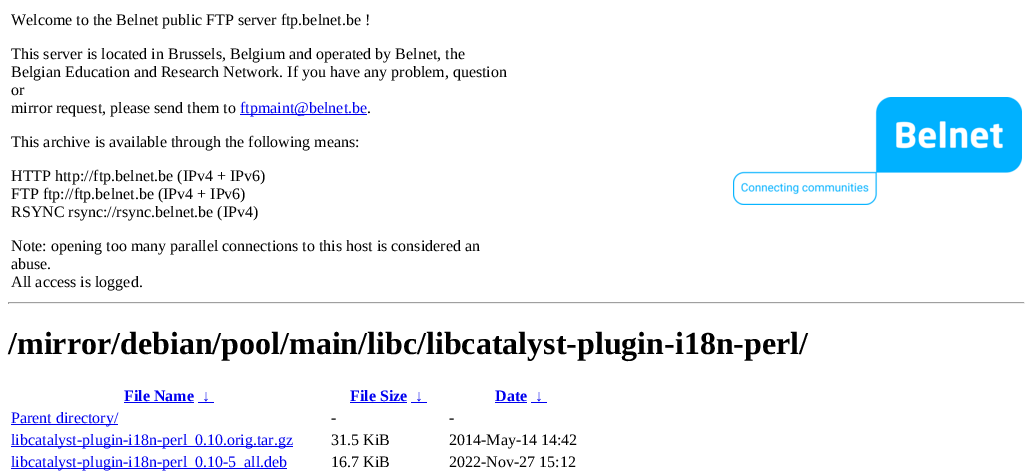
%!PS
<< /PageSize [1033 473] >> setpagedevice
/rgb { 3 { 255 div 3 1 roll } repeat setrgbcolor } def
/font { [ exch dup neg 0 0 3 -1 roll 0 0 ] selectfont } def
/picture { 5 dict begin { /h /w /y /x /name } { exch def } forall
  gsave x y translate w h scale
  w h 8 [w 0 0 h 0 0] name (r) file false 3 colorimage grestore end } def
0 473 translate 1 -1 scale
4 setmiterlimit
255 255 255 rgb
0 0 1033 473 rectfill
0 0 238 rgb
240 114 127 1 rectfill
(img/1.rgb) 733 97 289 108 picture
[
  [8 302 1017 1 159 159 159]
  [1024 302 1 2 238 238 238]
  [8 303 1017 1 238 238 238]
  [8 302 1 2 159 159 159]
  [124 402 70 1 0 0 238]
  [198 402 16 1 0 0 238]
  [350 402 57 1 0 0 238]
  [411 402 16 1 0 0 238]
  [495 402 32 1 0 0 238]
  [531 402 16 1 0 0 238]
  [11 424 107 1 0 0 238]
  [11 446 282 1 0 0 238]
  [11 468 276 1 0 0 238]
] { aload pop rgb rectfill } forall
/LiberationSerif-Regular 16 font
0 0 0 rgb
[
  [(Welcome to the Belnet public FTP server ftp.belnet.be !) 11 25]
  [(This server is located in Brussels, Belgium and operated by Belnet, the) 11 59]
  [(Belgian Education and Research Network. If you have any problem, question) 11 77]
  [(or) 11 95]
  [(mirror request, please send them to) 11 113]
] { aload pop moveto show } forall
0 0 238 rgb
240 113 moveto (ftpmaint@belnet.be) show
0 0 0 rgb
[
  [(.) 367 113]
  [(This archive is available through the following means:) 11 147]
  [(HTTP http://ftp.belnet.be \(IPv4 + IPv6\)) 11 181]
  [(FTP ftp://ftp.belnet.be \(IPv4 + IPv6\)) 11 199]
  [(RSYNC rsync://rsync.belnet.be \(IPv4\)) 11 217]
  [(Note: opening too many parallel connections to this host is considered an) 11 251]
  [(abuse.) 11 269]
  [(All access is logged.) 11 287]
] { aload pop moveto show } forall
/LiberationSerif-Bold 32 font
8 354 moveto (/mirror/debian/pool/main/libc/libcatalyst-plugin-i18n-perl/) show
/LiberationSerif-Bold 16 font
0 0 238 rgb
[
  [(File Name) 124 401]
  [(↓) 202 401]
  [(File Size) 350 401]
  [(↓) 415 401]
  [(Date) 495 401]
  [(↓) 535 401]
] { aload pop moveto show } forall
/LiberationSerif-Regular 16 font
11 423 moveto (Parent directory/) show
0 0 0 rgb
331 423 moveto (-) show
449 423 moveto (-) show
0 0 238 rgb
11 445 moveto (libcatalyst-plugin-i18n-perl_0.10.orig.tar.gz) show
0 0 0 rgb
331 445 moveto (31.5 KiB) show
449 445 moveto (2014-May-14 14:42) show
0 0 238 rgb
11 467 moveto (libcatalyst-plugin-i18n-perl_0.10-5_all.deb) show
0 0 0 rgb
331 467 moveto (16.7 KiB) show
449 467 moveto (2022-Nov-27 15:12) show
showpage
